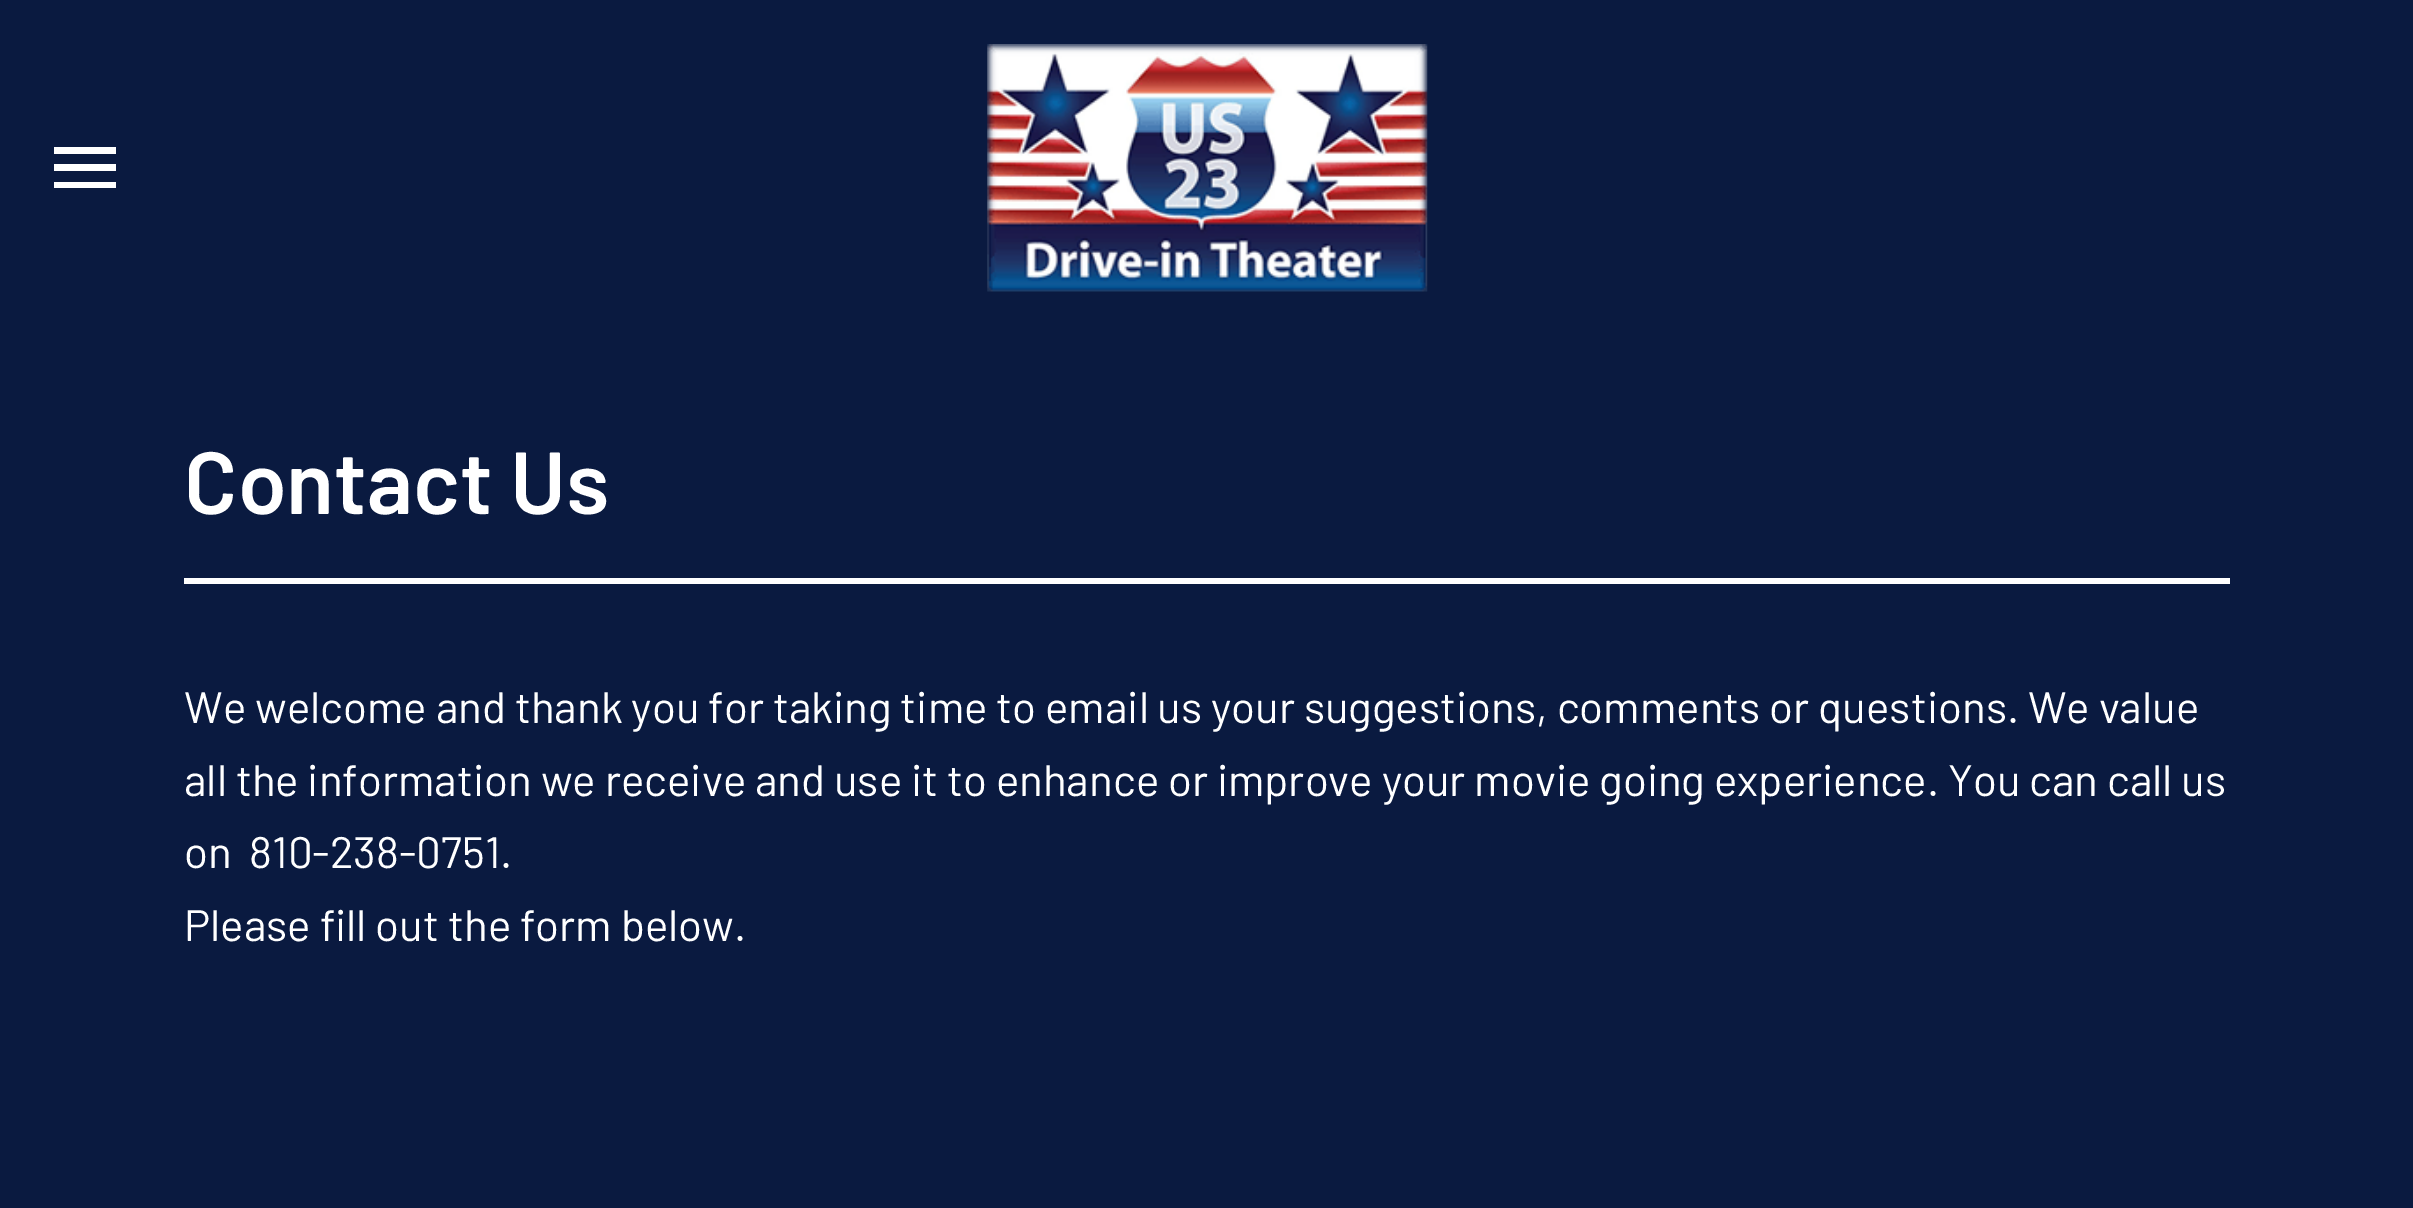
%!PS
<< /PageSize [2413 1208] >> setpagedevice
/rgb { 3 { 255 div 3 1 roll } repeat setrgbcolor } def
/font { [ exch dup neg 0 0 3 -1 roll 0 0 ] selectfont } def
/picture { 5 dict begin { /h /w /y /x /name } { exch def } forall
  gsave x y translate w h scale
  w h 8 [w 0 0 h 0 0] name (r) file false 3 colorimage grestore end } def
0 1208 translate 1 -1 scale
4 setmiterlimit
10 26 64 rgb
0 0 2413 1208 rectfill
255 255 255 rgb
54 147 moveto 116 147 lineto 116 154 lineto 54 154 lineto 54 147 lineto 54 164 moveto 116 164 lineto 116 171 lineto 54 171 lineto 54 164 lineto 54 182 moveto 116 182 lineto 116 188 lineto 54 188 lineto closepath fill
(img/1.rgb) 987 44 441 248 picture
184 578 2046 6 rectfill
/Barlow-SemiBold 88 font
184 514 moveto (Contact Us) show
/Barlow-Regular 44 font
[
  [(We welcome and thank you for taking time to email us your suggestions, comments or questions. We value) 184 723]
  [(all the information we receive and use it to enhance or improve your movie going experience. You can call us) 184 796]
  [(on  810-238-0751.) 184 868]
  [(Please fill out the form below.) 184 941]
] { aload pop moveto show } forall
showpage
